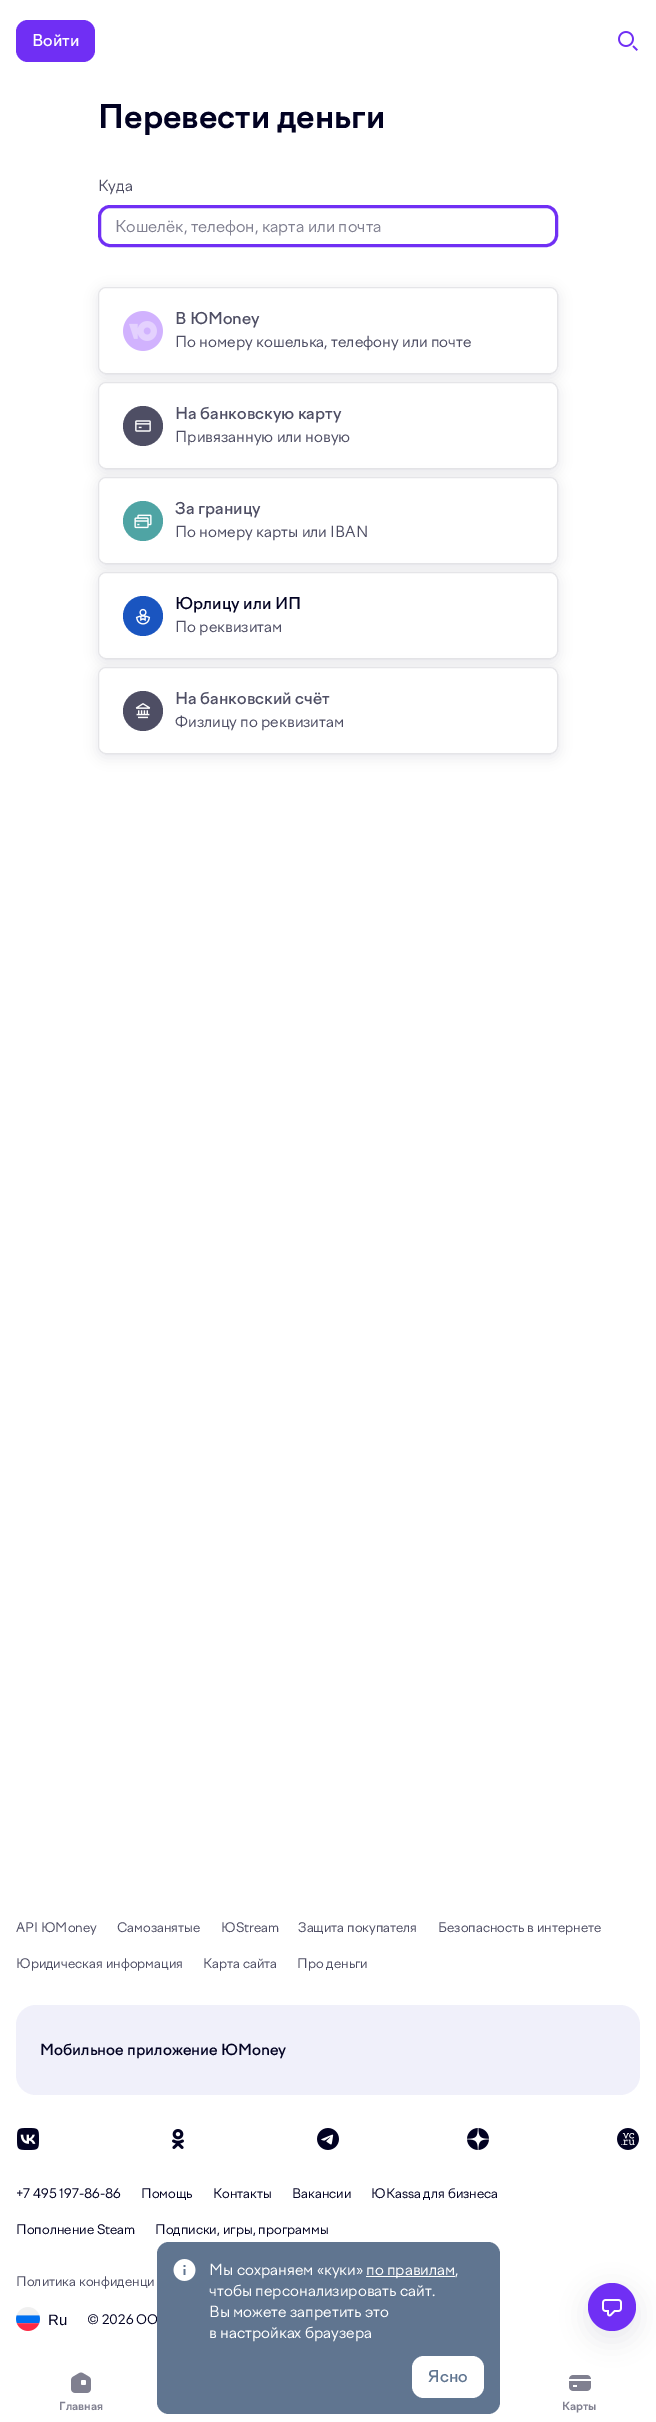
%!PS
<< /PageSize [656 2422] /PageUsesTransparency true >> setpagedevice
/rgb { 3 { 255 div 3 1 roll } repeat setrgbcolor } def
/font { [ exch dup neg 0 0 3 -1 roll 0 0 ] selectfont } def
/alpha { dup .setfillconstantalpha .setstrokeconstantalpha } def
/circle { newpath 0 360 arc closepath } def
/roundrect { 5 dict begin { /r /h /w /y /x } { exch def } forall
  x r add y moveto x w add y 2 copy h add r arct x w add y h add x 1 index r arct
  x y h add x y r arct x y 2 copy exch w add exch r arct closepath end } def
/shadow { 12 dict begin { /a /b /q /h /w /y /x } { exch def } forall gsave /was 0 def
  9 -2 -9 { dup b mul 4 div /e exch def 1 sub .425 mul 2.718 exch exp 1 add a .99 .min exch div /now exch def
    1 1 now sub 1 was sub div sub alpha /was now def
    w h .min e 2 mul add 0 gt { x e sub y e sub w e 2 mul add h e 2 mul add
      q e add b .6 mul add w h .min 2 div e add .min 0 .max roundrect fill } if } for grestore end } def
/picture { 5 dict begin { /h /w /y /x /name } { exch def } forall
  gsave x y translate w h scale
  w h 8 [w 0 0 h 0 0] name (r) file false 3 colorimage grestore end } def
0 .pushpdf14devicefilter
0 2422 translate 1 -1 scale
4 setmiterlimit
255 255 255 rgb
0 0 656 2422 rectfill
112 47 244 rgb
16 20 79 42 12 roundrect fill
(img/1.rgb) 618 31 20 20 picture
(img/2.rgb) 71 2372 20 21 picture
(img/3.rgb) 569 2375 22 16 picture
3 setlinewidth
99.5 206.5 457 39 10.5 roundrect stroke
0 8 50 rgb
97 289 462 89 9 6 0.08 shadow
255 255 255 rgb
98 287 460 87 8 roundrect fill
0.1 alpha
2 2 34 rgb
1 setlinewidth
98.5 287.5 459 86 7.5 roundrect stroke
1 alpha
(img/4.rgb) 123 311 40 40 picture
0 8 50 rgb
97 384 462 89 9 6 0.08 shadow
255 255 255 rgb
98 382 460 87 8 roundrect fill
0.1 alpha
2 2 34 rgb
98.5 382.5 459 86 7.5 roundrect stroke
1 alpha
78 78 100 rgb
143 426 20 circle fill
(img/5.rgb) 135 420 16 12 picture
0 8 50 rgb
97 479 462 89 9 6 0.08 shadow
255 255 255 rgb
98 477 460 87 8 roundrect fill
0.1 alpha
2 2 34 rgb
98.5 477.5 459 86 7.5 roundrect stroke
1 alpha
79 164 164 rgb
143 521 20 circle fill
(img/6.rgb) 134 514 18 15 picture
0 8 50 rgb
97 574 462 89 9 6 0.08 shadow
255 255 255 rgb
98 572 460 87 8 roundrect fill
0.1 alpha
2 2 34 rgb
98.5 572.5 459 86 7.5 roundrect stroke
1 alpha
26 85 192 rgb
143 616 20 circle fill
(img/7.rgb) 135 608 16 17 picture
0 8 50 rgb
97 669 462 89 9 6 0.08 shadow
255 255 255 rgb
98 667 460 87 8 roundrect fill
0.1 alpha
2 2 34 rgb
98.5 667.5 459 86 7.5 roundrect stroke
1 alpha
78 78 100 rgb
143 711 20 circle fill
(img/8.rgb) 135 703 16 16 picture
240 240 250 rgb
16 2005 624 90 20 roundrect fill
(img/9.rgb) 17 2128 22 22 picture
(img/10.rgb) 172 2129 12 20 picture
(img/11.rgb) 317 2128 22 22 picture
(img/12.rgb) 467 2128 22 22 picture
(img/13.rgb) 617 2128 22 22 picture
(img/14.rgb) 16 2307 24 24 picture
0 8 50 rgb
586 2289 52 52 26 12 0.08 shadow
112 47 244 rgb
612 2307 24 circle fill
(img/15.rgb) 602 2299 20 18 picture
/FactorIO-Medium 16 font
255 255 255 rgb
32 46 moveto (Войти) show
/FactorIO-Bold 11 font
129 129 145 rgb
59 2410 moveto (Главная) show
562 2410 moveto (Карты) show
/FactorIO-Bold 32 font
2 2 34 rgb
98 128 moveto (Перевести деньги) show
/FactorIO-Regular 15 font
78 78 100 rgb
98 191 moveto (Куда) show
/FactorIO-Regular 16 font
129 129 145 rgb
115 232 moveto (Кошелёк, телефон, карта или почта) show
/FactorIO-Medium 16 font
78 78 100 rgb
175 324 moveto (В ЮMoney) show
/FactorIO-Regular 15 font
175 347 moveto (По номеру кошелька, телефону или почте) show
/FactorIO-Medium 16 font
175 419 moveto (На банковскую карту) show
/FactorIO-Regular 15 font
175 442 moveto (Привязанную или новую) show
/FactorIO-Medium 16 font
175 514 moveto (За границу) show
/FactorIO-Regular 15 font
175 537 moveto (По номеру карты или IBAN) show
/FactorIO-Medium 16 font
2 2 34 rgb
175 609 moveto (Юрлицу или ИП) show
/FactorIO-Regular 15 font
78 78 100 rgb
175 632 moveto (По реквизитам) show
/FactorIO-Medium 16 font
175 704 moveto (На банковский счёт) show
/FactorIO-Regular 15 font
175 727 moveto (Физлицу по реквизитам) show
/FactorIO-Regular 13 font
[
  [(API ЮMoney) 16 1932]
  [(Самозанятые) 117 1932]
  [(ЮStream) 221 1932]
  [(Защита покупателя) 298 1932]
  [(Безопасность в интернете) 438 1932]
  [(Юридическая информация) 16 1968]
  [(Карта сайта) 203 1968]
  [(Про деньги) 297 1968]
] { aload pop moveto show } forall
/FactorIO-Medium 15 font
2 2 34 rgb
40 2055 moveto (Мобильное приложение ЮMoney) show
/FactorIO-Regular 13 font
[
  [(+7 495 197-86-86) 16 2198]
  [(Помощь) 141 2198]
  [(Контакты) 213 2198]
  [(Вакансии) 292 2198]
  [(ЮКassa для бизнеса) 371 2198]
  [(Пополнение Steam) 16 2234]
  [(Подписки, игры, программы) 155 2234]
] { aload pop moveto show } forall
78 78 100 rgb
16 2286 moveto (Политика конфиденци) show
/LiberationSans-Regular 15 font
2 2 34 rgb
48 2325 moveto (Ru) show
/FactorIO-Regular 13 font
87 2324 moveto (© 2026 ОО) show
96 117 144 rgb
157 2242 343 172 12 roundrect fill
(img/16.rgb) 173 2259 23 22 picture
/FactorIO-Regular 15 font
255 255 255 rgb
209 2275 moveto (Мы сохраняем «куки») show
366 2276 89 1 rectfill
[
  [(по правилам,) 366 2275]
  [(чтобы персонализировать сайт.) 209 2296]
  [(Вы можете запретить это) 209 2317]
  [(в настройках браузера) 209 2338]
] { aload pop moveto show } forall
412 2356 72 42 12 roundrect fill
/FactorIO-Medium 16 font
96 117 144 rgb
428 2382 moveto (Ясно) show
.poppdf14devicefilter showpage
